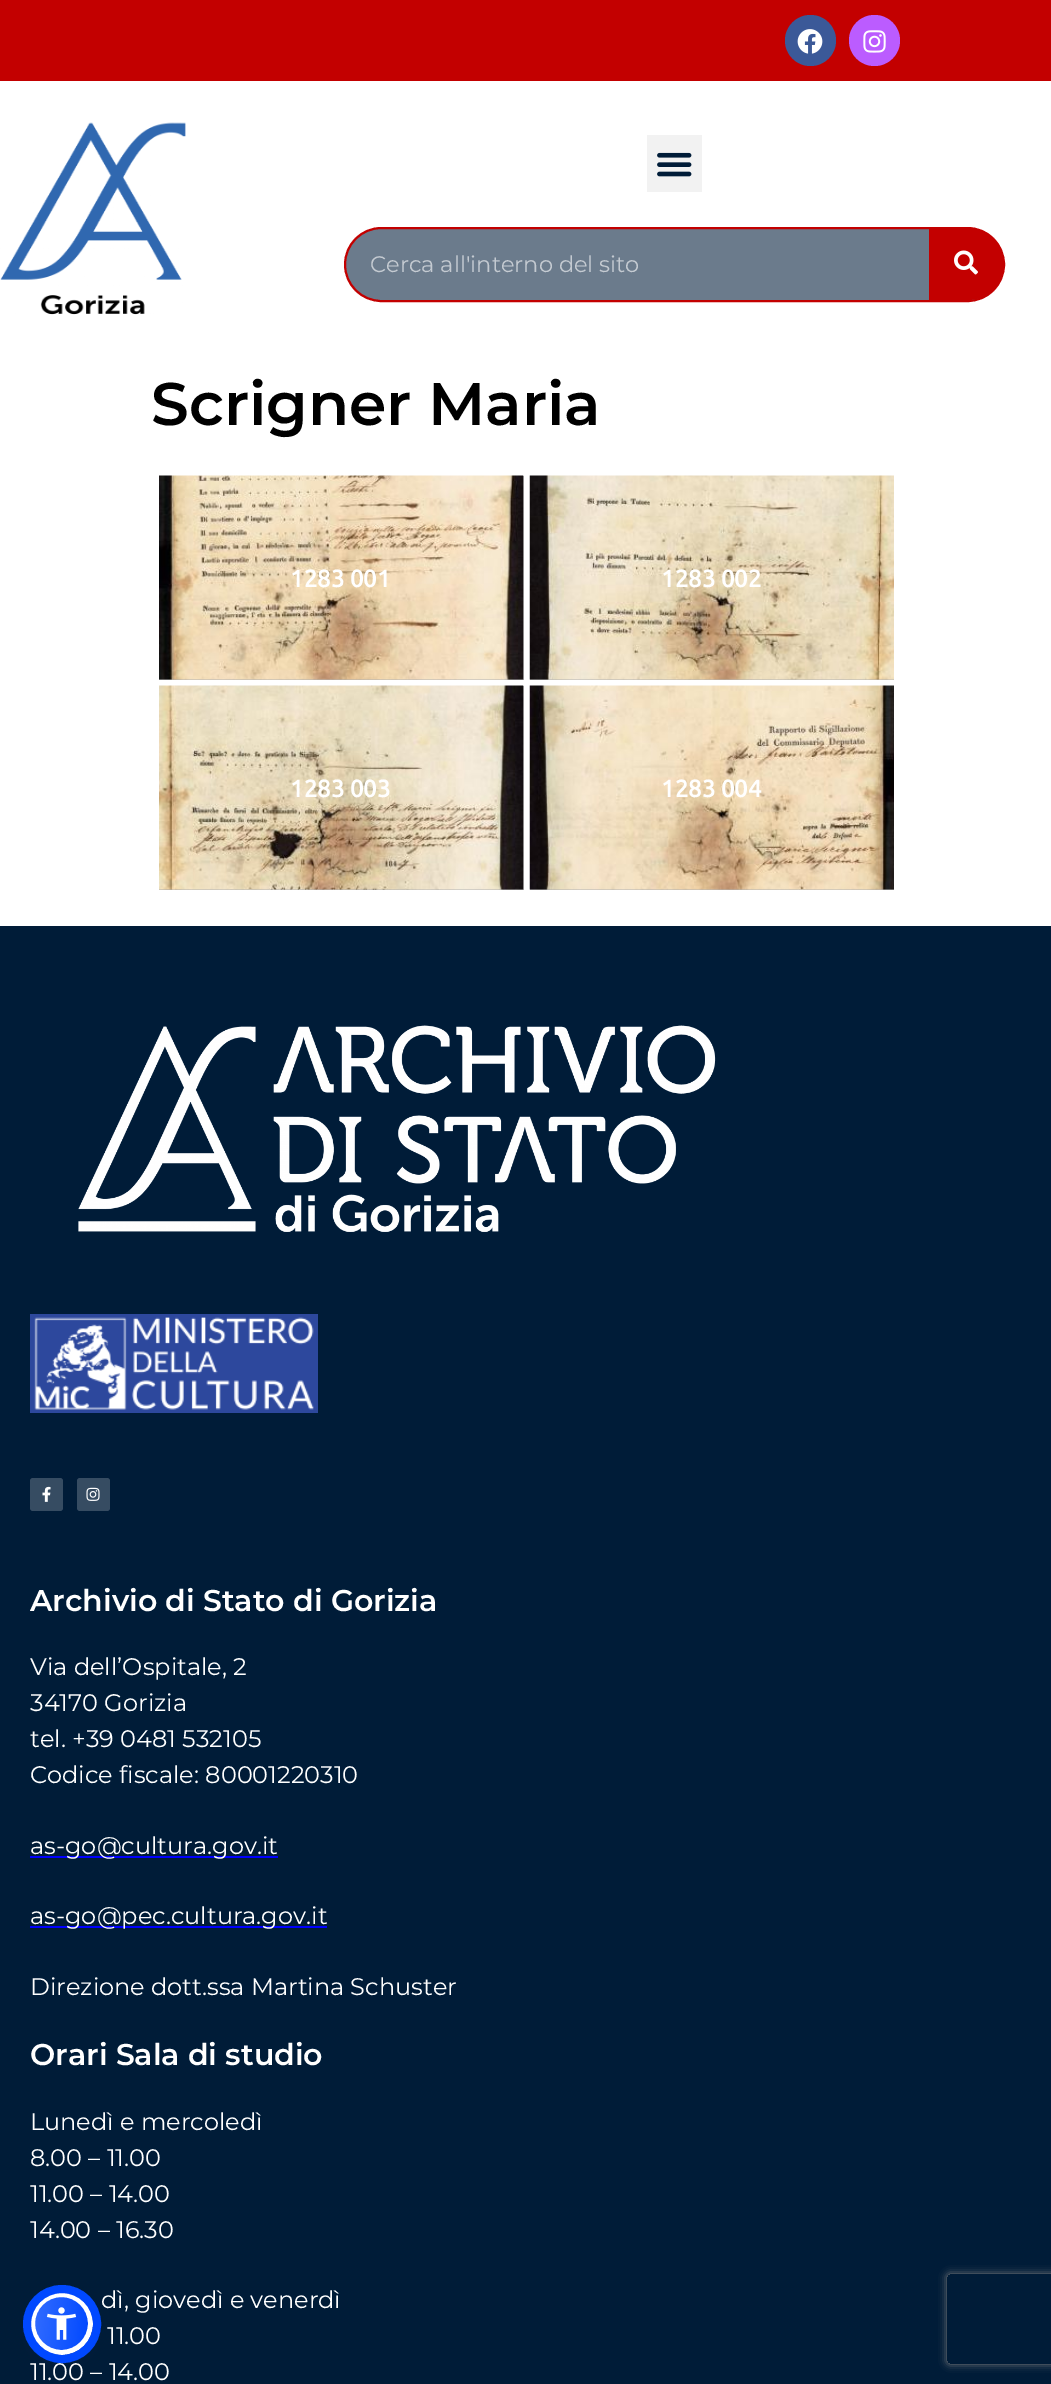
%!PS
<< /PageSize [1051 2384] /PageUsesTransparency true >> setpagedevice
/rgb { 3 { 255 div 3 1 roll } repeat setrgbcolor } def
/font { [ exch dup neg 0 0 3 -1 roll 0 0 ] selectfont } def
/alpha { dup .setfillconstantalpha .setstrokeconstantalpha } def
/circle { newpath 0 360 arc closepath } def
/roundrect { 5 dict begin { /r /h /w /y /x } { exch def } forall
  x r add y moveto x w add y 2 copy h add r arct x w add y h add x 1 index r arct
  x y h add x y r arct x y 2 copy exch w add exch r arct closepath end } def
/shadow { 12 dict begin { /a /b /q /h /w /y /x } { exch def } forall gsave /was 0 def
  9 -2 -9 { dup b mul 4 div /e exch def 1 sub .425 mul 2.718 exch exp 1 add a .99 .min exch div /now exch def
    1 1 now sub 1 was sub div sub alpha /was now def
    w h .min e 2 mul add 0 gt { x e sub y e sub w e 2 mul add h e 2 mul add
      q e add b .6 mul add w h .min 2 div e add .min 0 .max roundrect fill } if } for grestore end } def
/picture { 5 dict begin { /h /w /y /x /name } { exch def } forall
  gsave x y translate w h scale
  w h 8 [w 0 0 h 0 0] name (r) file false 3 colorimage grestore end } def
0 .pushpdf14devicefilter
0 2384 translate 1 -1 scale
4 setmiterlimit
255 255 255 rgb
0 0 1051 2384 rectfill
195 0 0 rgb
0 0 1051 81 rectfill
59 89 152 rgb
810.5 40.5 25.5 circle fill
(img/1.rgb) 797 29 26 25 picture
187 92 255 rgb
874.5 40.5 25.5 circle fill
(img/2.rgb) 863 30 23 23 picture
(img/3.rgb) 0 122 186 193 picture
242 242 242 rgb
647 135 55 57 rectfill
(img/4.rgb) 657 152 35 25 picture
107 123 140 rgb
345 228 659 73 36.5 roundrect gsave fill grestore
195 0 0 rgb
2 setlinewidth
stroke
929 228 moveto 968 228 lineto 988 228 1004 244 1004 264 curveto 1004 284 988 300 968 300 curveto 929 300 lineto closepath fill
(img/5.rgb) 954 250 24 25 picture
179 179 179 rgb
159 476 365 204 rectfill
(img/6.rgb) 159 475 365 205 picture
530 679 364 1 rectfill
(img/7.rgb) 529 475 365 205 picture
159 686 365 204 rectfill
(img/8.rgb) 159 685 365 205 picture
530 889 364 1 rectfill
(img/9.rgb) 529 685 365 205 picture
0 28 56 rgb
0 926 1051 1458 rectfill
(img/10.rgb) 78 1025 638 207 picture
(img/11.rgb) 30 1314 288 99 picture
54 76 98 rgb
30 1478 33 33 3 roundrect fill
(img/12.rgb) 42 1486 9 16 picture
77 1478 33 33 3 roundrect fill
(img/13.rgb) 86 1487 14 14 picture
0 0 255 rgb
30 1856 248 2 rectfill
30 1926 297 2 rectfill
gsave
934 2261 moveto 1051 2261 lineto 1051 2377 lineto 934 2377 lineto closepath 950 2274 moveto 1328 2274 lineto 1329.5 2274 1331 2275.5 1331 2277 curveto 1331 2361 lineto 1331 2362.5 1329.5 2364 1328 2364 curveto 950 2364 lineto 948.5 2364 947 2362.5 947 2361 curveto 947 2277 lineto 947 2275.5 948.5 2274 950 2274 curveto closepath eoclip newpath
128 128 128 rgb
947 2274 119 90 3 4 1 shadow
grestore
93 100 148 rgb
30 2295 63 63 31.5 3 0.2 shadow
37 44 97 rgb
30 2300 63 63 31.5 11 0.15 shadow
gsave
30 2292 63 63 31.5 roundrect clip newpath
gsave 35 2297 moveto 89 2297 lineto 89 2351 lineto 35 2351 lineto closepath clip newpath
<< /ShadingType 2 /ColorSpace /DeviceRGB /Coords [32 2320 91 2327] /Extend [true true] /Function << /FunctionType 2 /Domain [0 1] /C0 [0.196 0.424 1] /C1 [0 0.282 1] /N 1 >> >> shfill grestore
grestore
255 255 255 rgb
5 setlinewidth
61.5 2323.5 29 circle stroke
0 72 255 rgb
8 setlinewidth
62 2324 35 circle stroke
(img/14.rgb) 46 2307 31 33 picture
/Montserrat-Regular 22.5 font
196 202 209 rgb
370 272 moveto (Cerca all'interno del sito) show
/Montserrat-SemiBold 60 font
0 0 0 rgb
151 425 moveto (Scrigner Maria) show
/Ubuntu-Bold 24 font
255 255 255 rgb
[
  [(1283 001) 290 587]
  [(1283 002) 661 587]
  [(1283 003) 290 797]
  [(1283 004) 661 797]
] { aload pop moveto show } forall
/Montserrat-SemiBold 30 font
30 1611 moveto (Archivio di Stato di Gorizia) show
/Montserrat-Regular 24 font
[
  [(Via dell’Ospitale, 2) 30 1675]
  [(34170 Gorizia) 30 1711]
  [(tel. +39 0481 532105) 30 1747]
  [(Codice fiscale: 80001220310) 30 1783]
  [(as-go@cultura.gov.it) 30 1854]
  [(as-go@pec.cultura.gov.it) 30 1924]
  [(Direzione dott.ssa Martina Schuster) 30 1995]
] { aload pop moveto show } forall
/Montserrat-SemiBold 30 font
30 2065 moveto (Orari Sala di studio) show
/Montserrat-Regular 24 font
[
  [(Lunedì e mercoledì) 30 2130]
  [(8.00 – 11.00) 30 2166]
  [(11.00 – 14.00) 30 2202]
  [(14.00 – 16.30) 30 2238]
  [(dì, giovedì e venerdì) 101 2308]
  [(11.00) 107 2344]
  [(11.00 – 14.00) 30 2380]
] { aload pop moveto show } forall
.poppdf14devicefilter showpage
